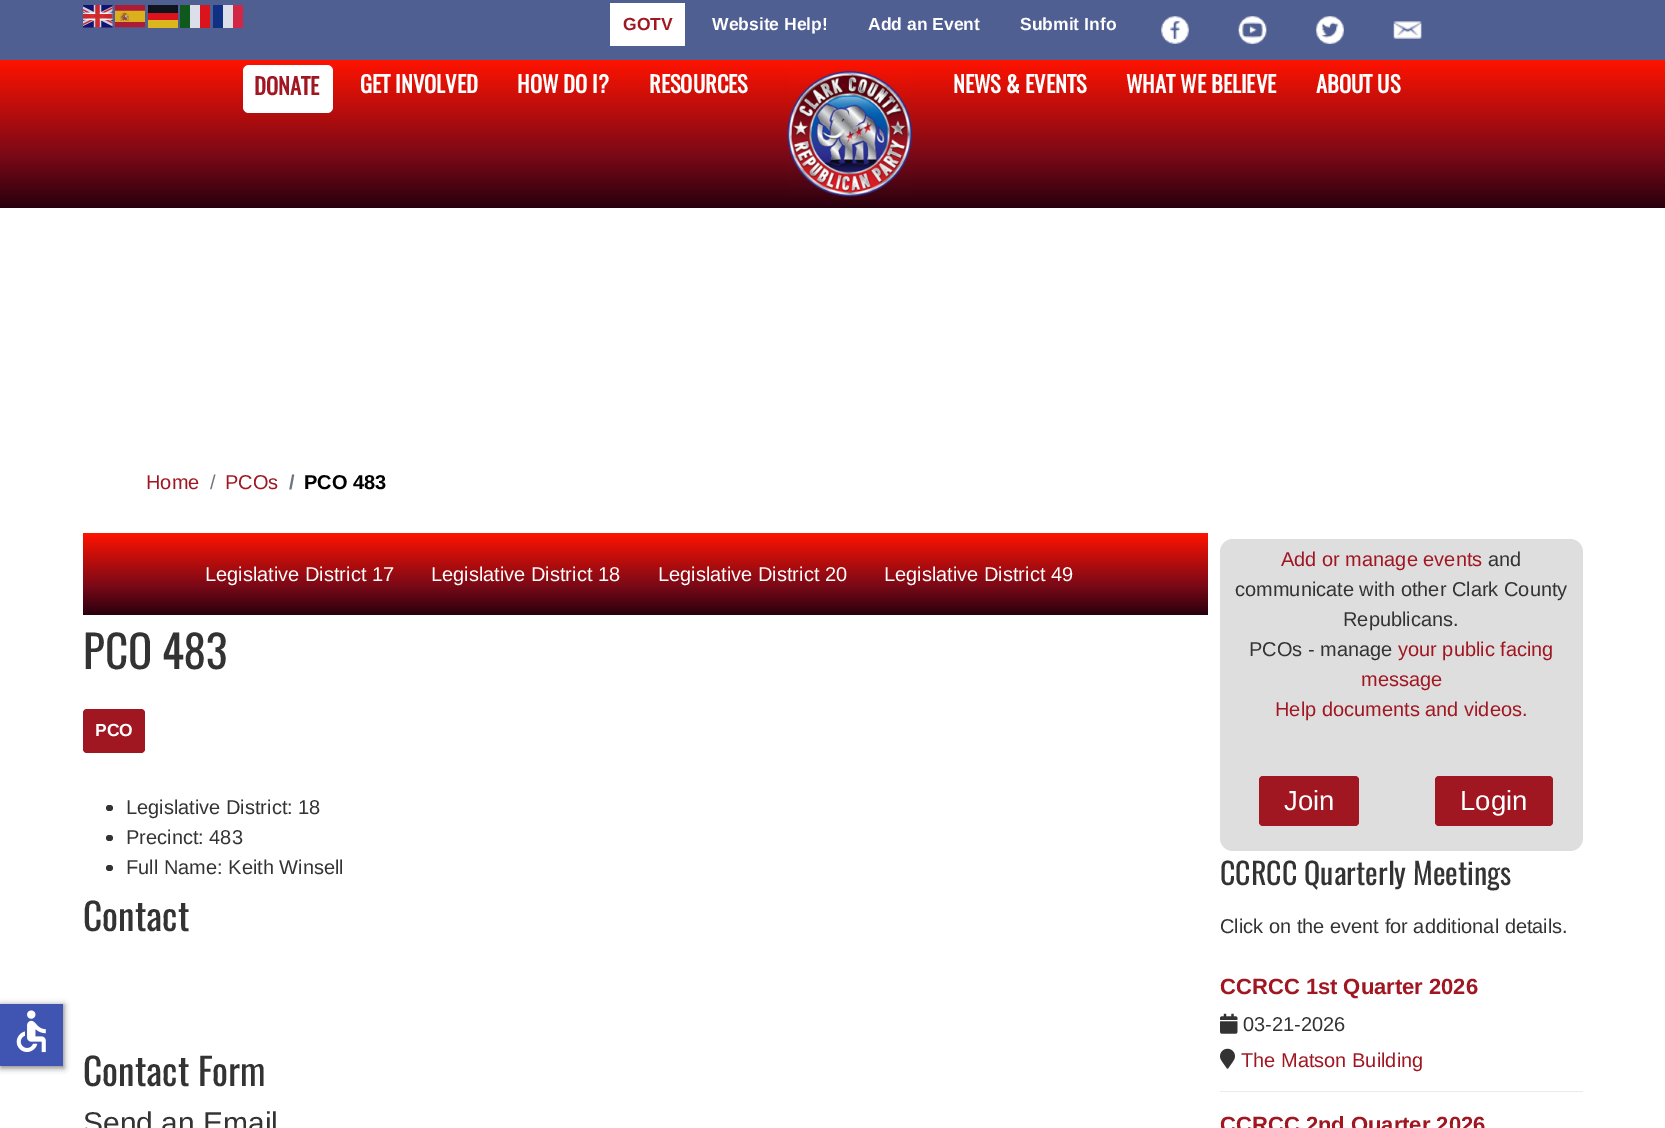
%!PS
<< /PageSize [1665 1128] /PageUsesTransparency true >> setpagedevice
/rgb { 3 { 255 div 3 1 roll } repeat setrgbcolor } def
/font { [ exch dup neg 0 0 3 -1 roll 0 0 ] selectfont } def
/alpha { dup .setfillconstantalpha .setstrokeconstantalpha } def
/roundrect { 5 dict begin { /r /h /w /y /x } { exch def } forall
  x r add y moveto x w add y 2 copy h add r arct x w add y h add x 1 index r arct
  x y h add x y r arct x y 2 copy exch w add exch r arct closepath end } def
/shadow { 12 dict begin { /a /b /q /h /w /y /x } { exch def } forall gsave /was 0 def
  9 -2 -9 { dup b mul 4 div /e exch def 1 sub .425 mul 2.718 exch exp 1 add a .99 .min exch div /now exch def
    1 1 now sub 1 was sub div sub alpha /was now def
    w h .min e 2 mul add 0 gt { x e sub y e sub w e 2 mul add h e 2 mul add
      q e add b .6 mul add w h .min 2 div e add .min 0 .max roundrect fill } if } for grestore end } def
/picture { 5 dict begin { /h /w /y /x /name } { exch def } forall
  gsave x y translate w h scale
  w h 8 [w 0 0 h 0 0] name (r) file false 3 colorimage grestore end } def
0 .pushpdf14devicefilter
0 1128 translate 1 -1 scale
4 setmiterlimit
255 255 255 rgb
0 0 1665 1128 rectfill
80 95 146 rgb
0 0 1665 60 rectfill
(img/1.rgb) 83 5 30 23 picture
(img/2.rgb) 115 5 30 23 picture
[
  [148 5 30 8 16 19 29]
  [180 5 10 23 16 89 29]
  [190 5 10 23 220 223 233]
  [200 5 10 23 218 19 29]
  [213 5 10 23 16 49 131]
  [223 5 10 23 220 223 233]
  [233 5 10 23 210 38 68]
  [148 13 30 7 220 19 29]
  [148 20 30 8 220 182 29]
  [610 3 75 43 255 255 255]
] { aload pop rgb rectfill } forall
(img/3.rgb) 1161 16 28 28 picture
(img/4.rgb) 1238 16 29 29 picture
(img/5.rgb) 1315 16 29 29 picture
(img/6.rgb) 1393 21 29 18 picture
gsave 0 60 moveto 1665 60 lineto 1665 208 lineto 0 208 lineto closepath clip newpath
<< /ShadingType 2 /ColorSpace /DeviceRGB /Coords [833 208 833 60] /Extend [true true] /Function << /FunctionType 3 /Domain [0 1] /Functions [<< /FunctionType 2 /Domain [0 1] /C0 [0.157 0 0.055] /C1 [0.475 0.035 0.09] /N 1 >> << /FunctionType 2 /Domain [0 1] /C0 [0.475 0.035 0.09] /C1 [1 0.075 0] /N 1 >>] /Bounds [0.35] /Encode [0 1 0 1] >> >> shfill grestore
243 65 90 48 6 roundrect fill
(img/7.rgb) 787 71 126 126 picture
0 0 0 rgb
1 1005 63 63 0 3 0.5 shadow
64 84 178 rgb
0 1004 63 62 rectfill
(img/8.rgb) 16 1010 30 43 picture
gsave 83 533 moveto 1208 533 lineto 1208 615 lineto 83 615 lineto closepath clip newpath
<< /ShadingType 2 /ColorSpace /DeviceRGB /Coords [645 615 645 533] /Extend [true true] /Function << /FunctionType 3 /Domain [0 1] /Functions [<< /FunctionType 2 /Domain [0 1] /C0 [0.157 0 0.055] /C1 [0.475 0.035 0.09] /N 1 >> << /FunctionType 2 /Domain [0 1] /C0 [0.475 0.035 0.09] /C1 [1 0.075 0] /N 1 >>] /Bounds [0.35] /Encode [0 1 0 1] >> >> shfill grestore
160 23 34 rgb
83 709 62 44 4 roundrect fill
51 51 51 rgb
106 805 7 6 3 roundrect fill
106 835 7 6 3 roundrect fill
106 865 7 6 3 roundrect fill
222 222 222 rgb
1220 539 363 312 13 roundrect fill
160 23 34 rgb
1259 776 100 50 4 roundrect fill
1435 776 118 50 4 roundrect fill
230 236 240 rgb
1220 1091 363 1 rectfill
(img/9.rgb) 1220 1013 18 21 picture
(img/10.rgb) 1220 1048 15 21 picture
/LiberationSans-Bold 17.5 font
160 23 34 rgb
623 30 moveto (GOTV) show
255 255 255 rgb
[
  [(Website Help!) 712 30]
  [(Add an Event) 868 30]
  [(Submit Info) 1020 30]
] { aload pop moveto show } forall
/Oswald-Bold 22.5 font
160 23 34 rgb
254 95 moveto (DONATE) show
255 255 255 rgb
[
  [(GET INVOLVED) 360 93]
  [(HOW DO I?) 517 93]
  [(RESOURCES) 649 93]
  [(NEWS & EVENTS) 953 93]
  [(WHAT WE BELIEVE) 1126 93]
  [(ABOUT US) 1316 93]
] { aload pop moveto show } forall
/LiberationSans-Regular 20 font
160 23 34 rgb
146 489 moveto (Home) show
109 117 126 rgb
210 489 moveto (/) show
160 23 34 rgb
225 489 moveto (PCOs) show
/LiberationSans-Bold 20 font
109 117 126 rgb
289 489 moveto (/) show
0 0 0 rgb
304 489 moveto (PCO 483) show
/LiberationSans-Regular 20 font
255 255 255 rgb
[
  [(Legislative District 17) 205 581]
  [(Legislative District 18) 431 581]
  [(Legislative District 20) 658 581]
  [(Legislative District 49) 884 581]
] { aload pop moveto show } forall
/Oswald-Regular 45 font
51 51 51 rgb
83 669 moveto (PCO 483) show
/LiberationSans-Bold 17.5 font
255 255 255 rgb
95 736 moveto (PCO) show
/LiberationSans-Regular 20 font
51 51 51 rgb
[
  [(Legislative District: 18) 126 814]
  [(Precinct: 483) 126 844]
  [(Full Name: Keith Winsell) 126 874]
] { aload pop moveto show } forall
/Oswald-Regular 37.5 font
83 931 moveto (Contact) show
83 1086 moveto (Contact Form) show
/LiberationSans-Regular 30 font
83 1133 moveto (Send an Email) show
/LiberationSans-Regular 20 font
160 23 34 rgb
1281 566 moveto (Add or manage events) show
51 51 51 rgb
[
  [(and) 1488 566]
  [(communicate with other Clark County) 1235 596]
  [(Republicans.) 1343 626]
  [(PCOs - manage) 1249 656]
] { aload pop moveto show } forall
160 23 34 rgb
[
  [(your public facing) 1398 656]
  [(message) 1361 686]
  [(Help documents and videos.) 1275 716]
] { aload pop moveto show } forall
/LiberationSans-Regular 27.5 font
255 255 255 rgb
1284 810 moveto (Join) show
1460 810 moveto (Login) show
/Oswald-Regular 30 font
51 51 51 rgb
1220 885 moveto (CCRCC Quarterly Meetings) show
/LiberationSans-Regular 20 font
1220 933 moveto (Click on the event for additional details.) show
/LiberationSans-Bold 22 font
160 23 34 rgb
1220 994 moveto (CCRCC 1st Quarter 2026) show
/LiberationSans-Regular 20 font
51 51 51 rgb
1243 1031 moveto (03-21-2026) show
160 23 34 rgb
1241 1067 moveto (The Matson Building) show
/LiberationSans-Bold 22 font
1220 1132 moveto (CCRCC 2nd Quarter 2026) show
.poppdf14devicefilter showpage
